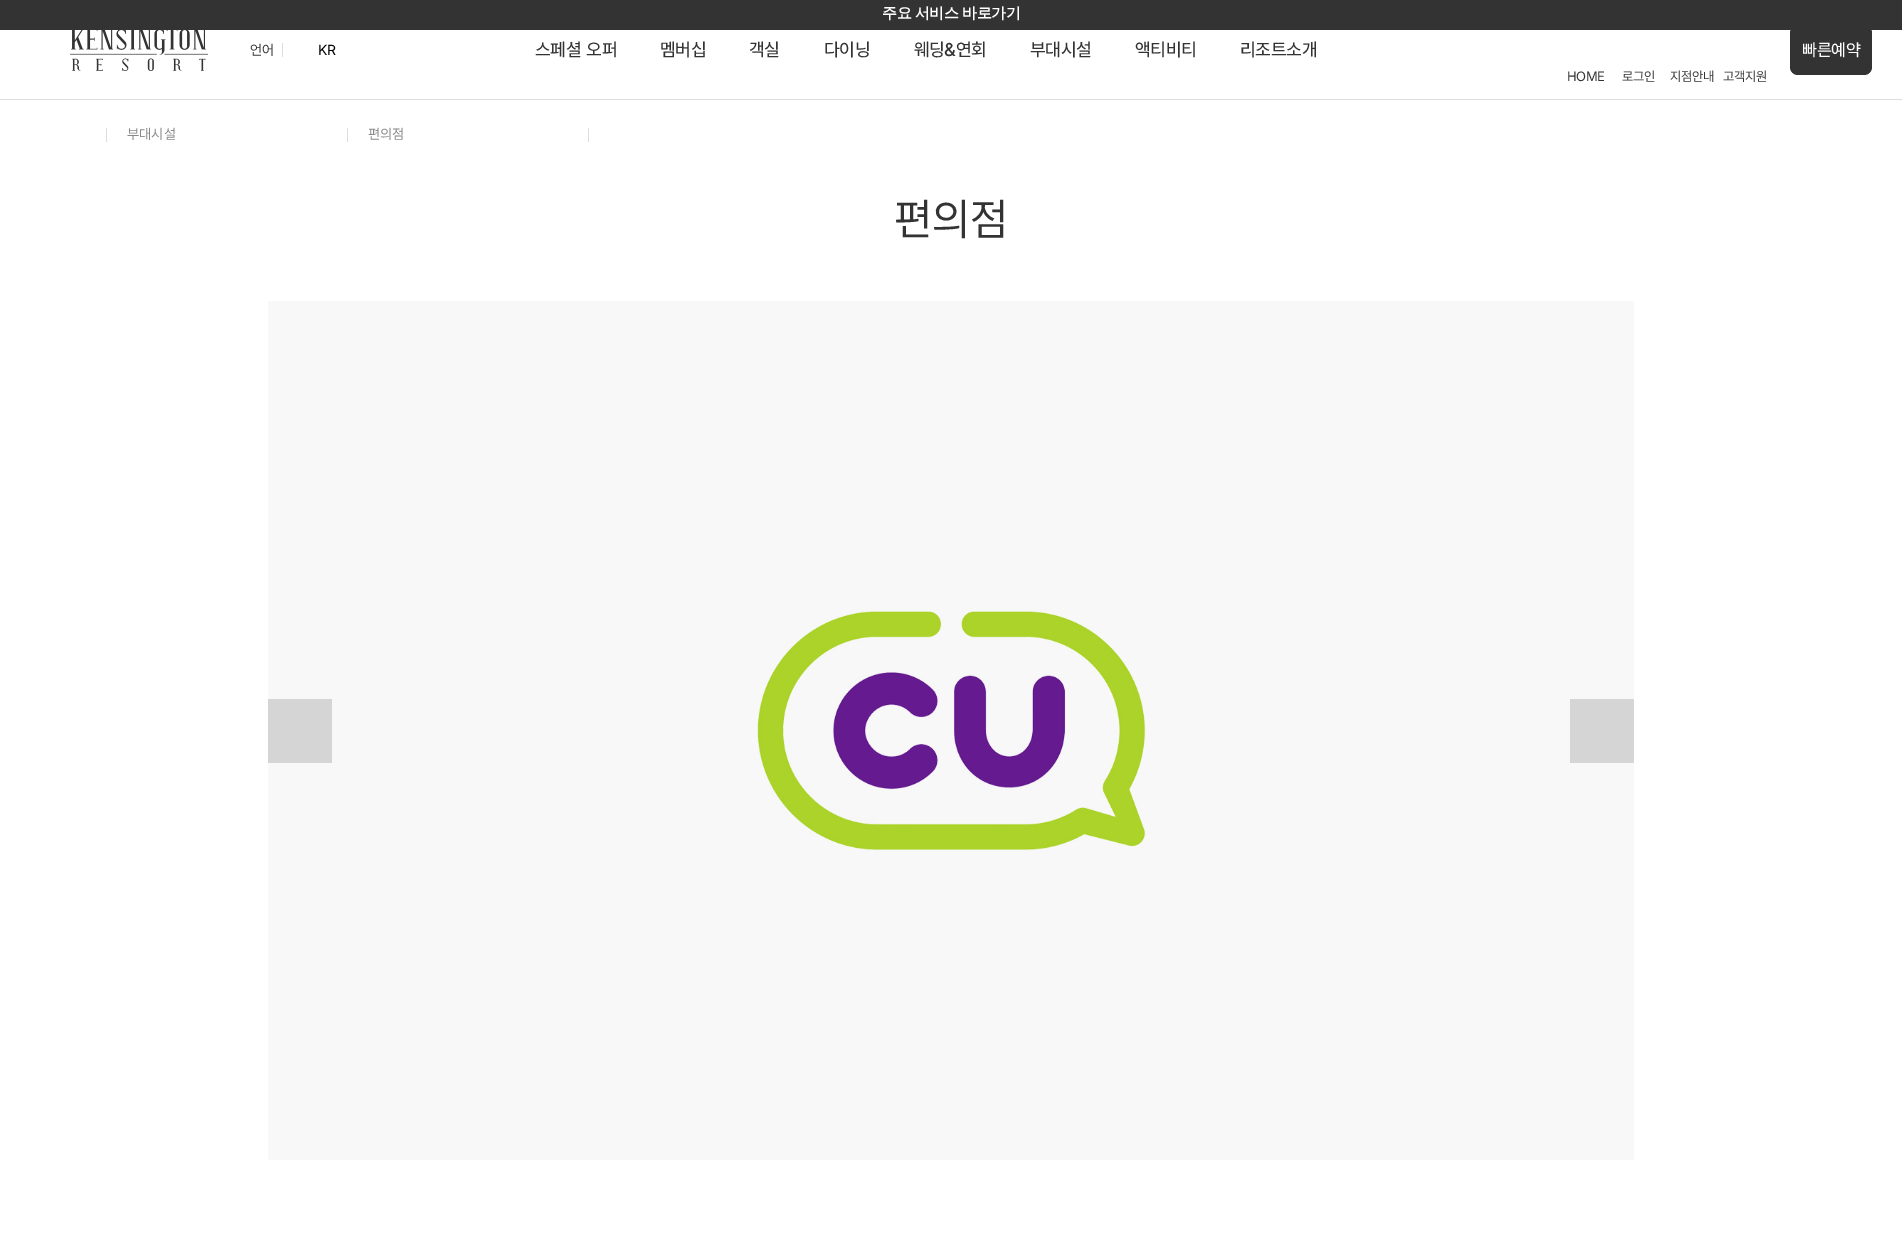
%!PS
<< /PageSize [1902 1238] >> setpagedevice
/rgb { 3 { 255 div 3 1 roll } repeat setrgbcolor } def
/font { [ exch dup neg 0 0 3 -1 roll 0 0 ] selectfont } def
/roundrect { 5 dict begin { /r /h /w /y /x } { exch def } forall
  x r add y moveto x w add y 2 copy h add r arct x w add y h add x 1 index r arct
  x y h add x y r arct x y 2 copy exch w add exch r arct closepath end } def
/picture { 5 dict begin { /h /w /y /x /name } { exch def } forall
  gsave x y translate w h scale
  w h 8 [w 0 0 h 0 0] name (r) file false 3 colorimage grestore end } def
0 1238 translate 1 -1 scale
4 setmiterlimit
255 255 255 rgb
0 0 1902 1238 rectfill
51 51 51 rgb
1790 25 82 50 8 roundrect fill
0 0 1902 30 rectfill
221 221 221 rgb
0 99 1902 1 rectfill
(img/1.rgb) 70 30 138 41 picture
[
  [282 43 1 14 221 221 221]
  [106 128 1 14 221 221 221]
  [347 128 1 14 221 221 221]
  [588 128 1 14 221 221 221]
] { aload pop rgb rectfill } forall
(img/2.rgb) 268 301 1366 859 picture
213 213 213 rgb
268 699 64 64 rectfill
1570 699 64 64 rectfill
/WenQuanYiZenHei-Bold 15 font
255 255 255 rgb
882 18 moveto -1 0 32 -0.3 0 (주요 서비스 바로가기) awidthshow
/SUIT-Regular 14 font
51 51 51 rgb
250 55 moveto -0.3 0 (언어) ashow
/Inter-Regular 14 font
0 0 0 rgb
318 55 moveto -0.3 0 (KR) ashow
/SUIT-Medium 18 font
51 51 51 rgb
535 56 moveto 1 0 32 -0.3 0 (스페셜 오퍼) awidthshow
660 56 moveto -0.3 0 (멤버십) ashow
749 56 moveto -0.3 0 (객실) ashow
824 56 moveto -0.3 0 (다이닝) ashow
914 56 moveto -0.3 0 (웨딩) ashow
/Inter-Medium 18 font
944 56 moveto -0.3 0 (&) ashow
/SUIT-Medium 18 font
956 56 moveto -0.3 0 (연회) ashow
1030 56 moveto -0.3 0 (부대시설) ashow
1135 56 moveto -0.3 0 (액티비티) ashow
1240 56 moveto -0.3 0 (리조트소개) ashow
/SUIT-Medium 17 font
255 255 255 rgb
1802 56 moveto -0.3 0 (빠른예약) ashow
/Inter-Regular 13 font
51 51 51 rgb
1567 81 moveto -0.3 0 (HOME) ashow
/SUIT-Regular 13 font
1622 81 moveto -0.3 0 (로그인) ashow
1670 81 moveto -0.3 0 (지점안내) ashow
1723 81 moveto -0.3 0 (고객지원) ashow
/SUIT-Regular 14 font
136 136 136 rgb
127 139 moveto (부대시설) show
368 139 moveto (편의점) show
/SUIT-Regular 44 font
51 51 51 rgb
894 235 moveto -0.3 0 (편의점) ashow
showpage
